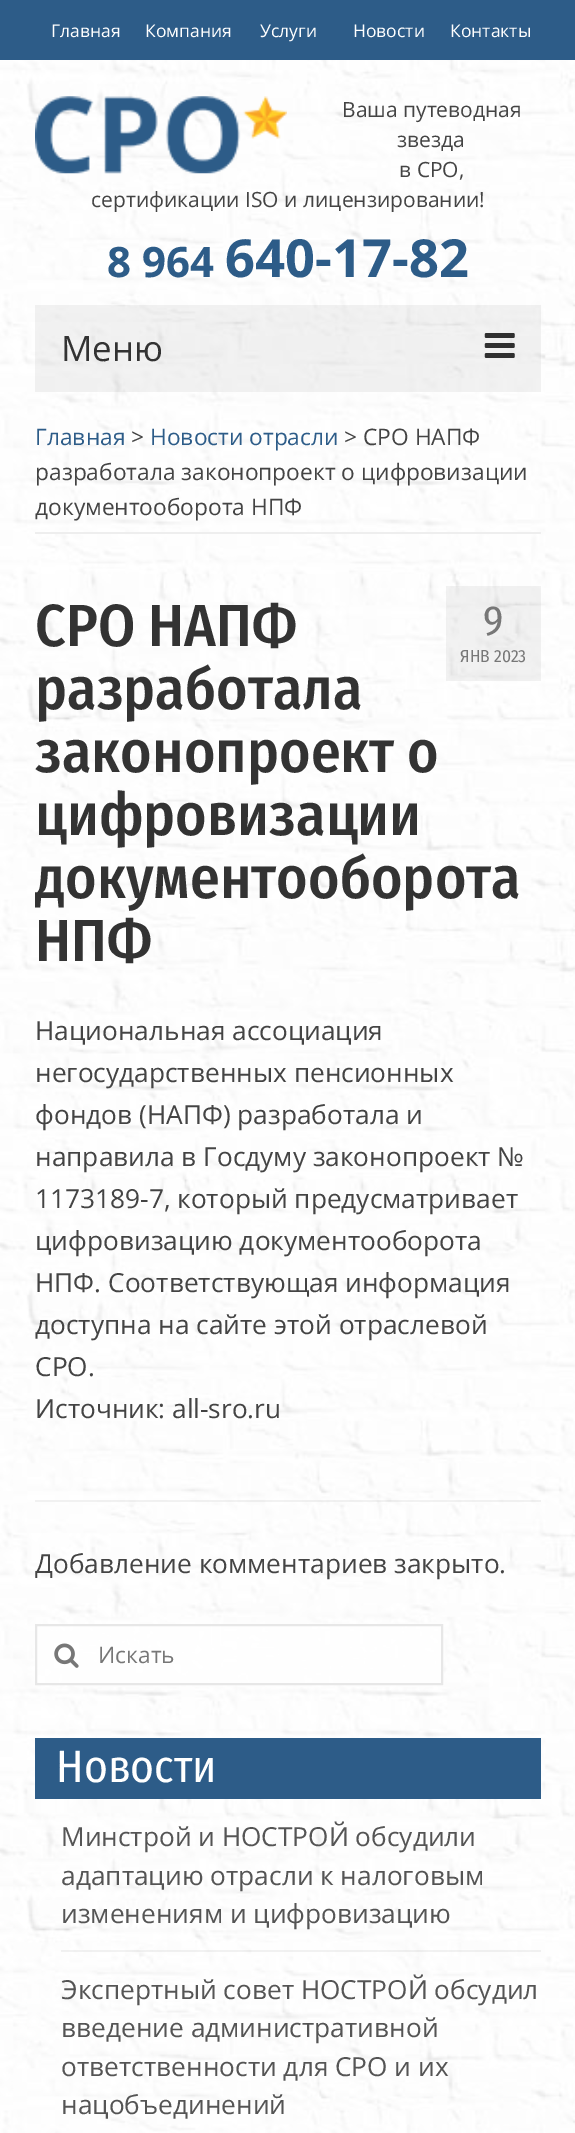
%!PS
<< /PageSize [575 2133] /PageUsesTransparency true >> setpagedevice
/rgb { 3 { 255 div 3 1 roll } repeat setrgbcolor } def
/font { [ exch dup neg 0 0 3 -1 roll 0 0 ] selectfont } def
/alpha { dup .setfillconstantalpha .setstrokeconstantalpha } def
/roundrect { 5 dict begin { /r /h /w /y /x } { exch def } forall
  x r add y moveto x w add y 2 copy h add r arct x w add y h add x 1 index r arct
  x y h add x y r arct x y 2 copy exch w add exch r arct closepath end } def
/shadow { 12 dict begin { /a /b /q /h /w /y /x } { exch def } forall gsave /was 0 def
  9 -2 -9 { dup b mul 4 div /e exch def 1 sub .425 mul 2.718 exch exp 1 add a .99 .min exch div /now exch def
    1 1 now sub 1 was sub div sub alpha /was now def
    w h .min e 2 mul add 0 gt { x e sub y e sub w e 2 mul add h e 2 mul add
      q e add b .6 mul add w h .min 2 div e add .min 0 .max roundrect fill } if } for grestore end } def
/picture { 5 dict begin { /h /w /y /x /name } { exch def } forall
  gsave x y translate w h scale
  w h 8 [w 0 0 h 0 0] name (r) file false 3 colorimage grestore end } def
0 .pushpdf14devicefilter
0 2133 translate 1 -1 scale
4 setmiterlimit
255 255 255 rgb
0 0 575 2133 rectfill
(img/1.rgb) 0 60 575 2073 picture
45 92 136 rgb
0 0 575 60 rectfill
(img/2.rgb) 35 96 252 78 picture
0.05 alpha
0 0 0 rgb
35 305 506 87 rectfill
1 alpha
(img/3.rgb) 484 333 31 25 picture
[
  [35 532 506 2 238 238 238]
] { aload pop rgb rectfill } forall
0.05 alpha
[
  [446 586 95 95 0 0 0]
  [35 1500 506 2 0 0 0]
] { aload pop rgb rectfill } forall
1 alpha
255 255 255 rgb
35 1624 408 61 0 2.5 1 shadow
231 231 231 rgb
2 setlinewidth
36 1625 406 59 rectstroke
(img/4.rgb) 54 1643 25 25 picture
45 92 136 rgb
35 1738 506 61 rectfill
0.05 alpha
0 0 0 rgb
61 1950 480 2 rectfill
/OpenSans-Regular 17.5 font
1 alpha
255 255 255 rgb
[
  [(Главная) 51 37]
  [(Компания) 145 37]
  [(Услуги) 260 37]
  [(Новости) 353 37]
  [(Контакты) 450 37]
] { aload pop moveto show } forall
/OpenSans-Regular 21 font
68 68 68 rgb
[
  [(Ваша путеводная) 342 117]
  [(звезда) 397 147]
  [(в СРО,) 399 177]
  [(сертификации ISO и лицензировании!) 91 207]
] { aload pop moveto show } forall
/OpenSans-Bold 42 font
45 92 136 rgb
107 277 moveto (8 964) show
/OpenSans-Bold 52.5 font
225 277 moveto (640-17-82) show
/OpenSans-Regular 35 font
51 51 51 rgb
61 361 moveto (Меню) show
/OpenSans-Regular 22.75 font
45 92 136 rgb
35 445 moveto (Главная) show
68 68 68 rgb
131 445 moveto (>) show
45 92 136 rgb
150 445 moveto (Новости отрасли) show
68 68 68 rgb
[
  [(> СРО НАПФ) 344 445]
  [(разработала законопроект о цифровизации) 35 480]
  [(документооборота НПФ) 35 515]
] { aload pop moveto show } forall
/FiraSansCondensed-Medium 59.5 font
51 51 51 rgb
[
  [(СРО НАПФ) 35 646]
  [(разработала) 35 709]
  [(законопроект о) 35 772]
  [(цифровизации) 35 835]
  [(документооборота) 35 898]
  [(НПФ) 35 961]
] { aload pop moveto show } forall
/FiraSansCondensed-Regular 42 font
119 119 119 rgb
483 635 moveto (9) show
/FiraSansCondensed-Regular 17.5 font
460 662 moveto (ЯНВ 2023) show
/OpenSans-Regular 26.25 font
68 68 68 rgb
[
  [(Национальная ассоциация) 35 1040]
  [(негосударственных пенсионных) 35 1082]
  [(фондов \(НАПФ\) разработала и) 35 1124]
  [(направила в Госдуму законопроект №) 35 1166]
  [(1173189-7, который предусматривает) 35 1208]
  [(цифровизацию документооборота) 35 1250]
  [(НПФ. Соответствующая информация) 35 1292]
  [(доступна на сайте этой отраслевой) 35 1334]
  [(СРО.) 35 1376]
  [(Источник: all-sro.ru) 35 1418]
  [(Добавление комментариев закрыто.) 35 1573]
] { aload pop moveto show } forall
/OpenSans-Regular 22.75 font
119 119 119 rgb
98 1663 moveto (Искать) show
/FiraSansCondensed-Regular 45.5 font
255 255 255 rgb
56 1782 moveto (Новости) show
/OpenSans-Regular 26.25 font
85 85 85 rgb
[
  [(Минстрой и НОСТРОЙ обсудили) 61 1846]
  [(адаптацию отрасли к налоговым) 61 1885]
  [(изменениям и цифровизацию) 61 1923]
  [(Экспертный совет НОСТРОЙ обсудил) 61 1999]
  [(введение административной) 61 2037]
  [(ответственности для СРО и их) 61 2076]
  [(нацобъединений) 61 2114]
] { aload pop moveto show } forall
.poppdf14devicefilter showpage
